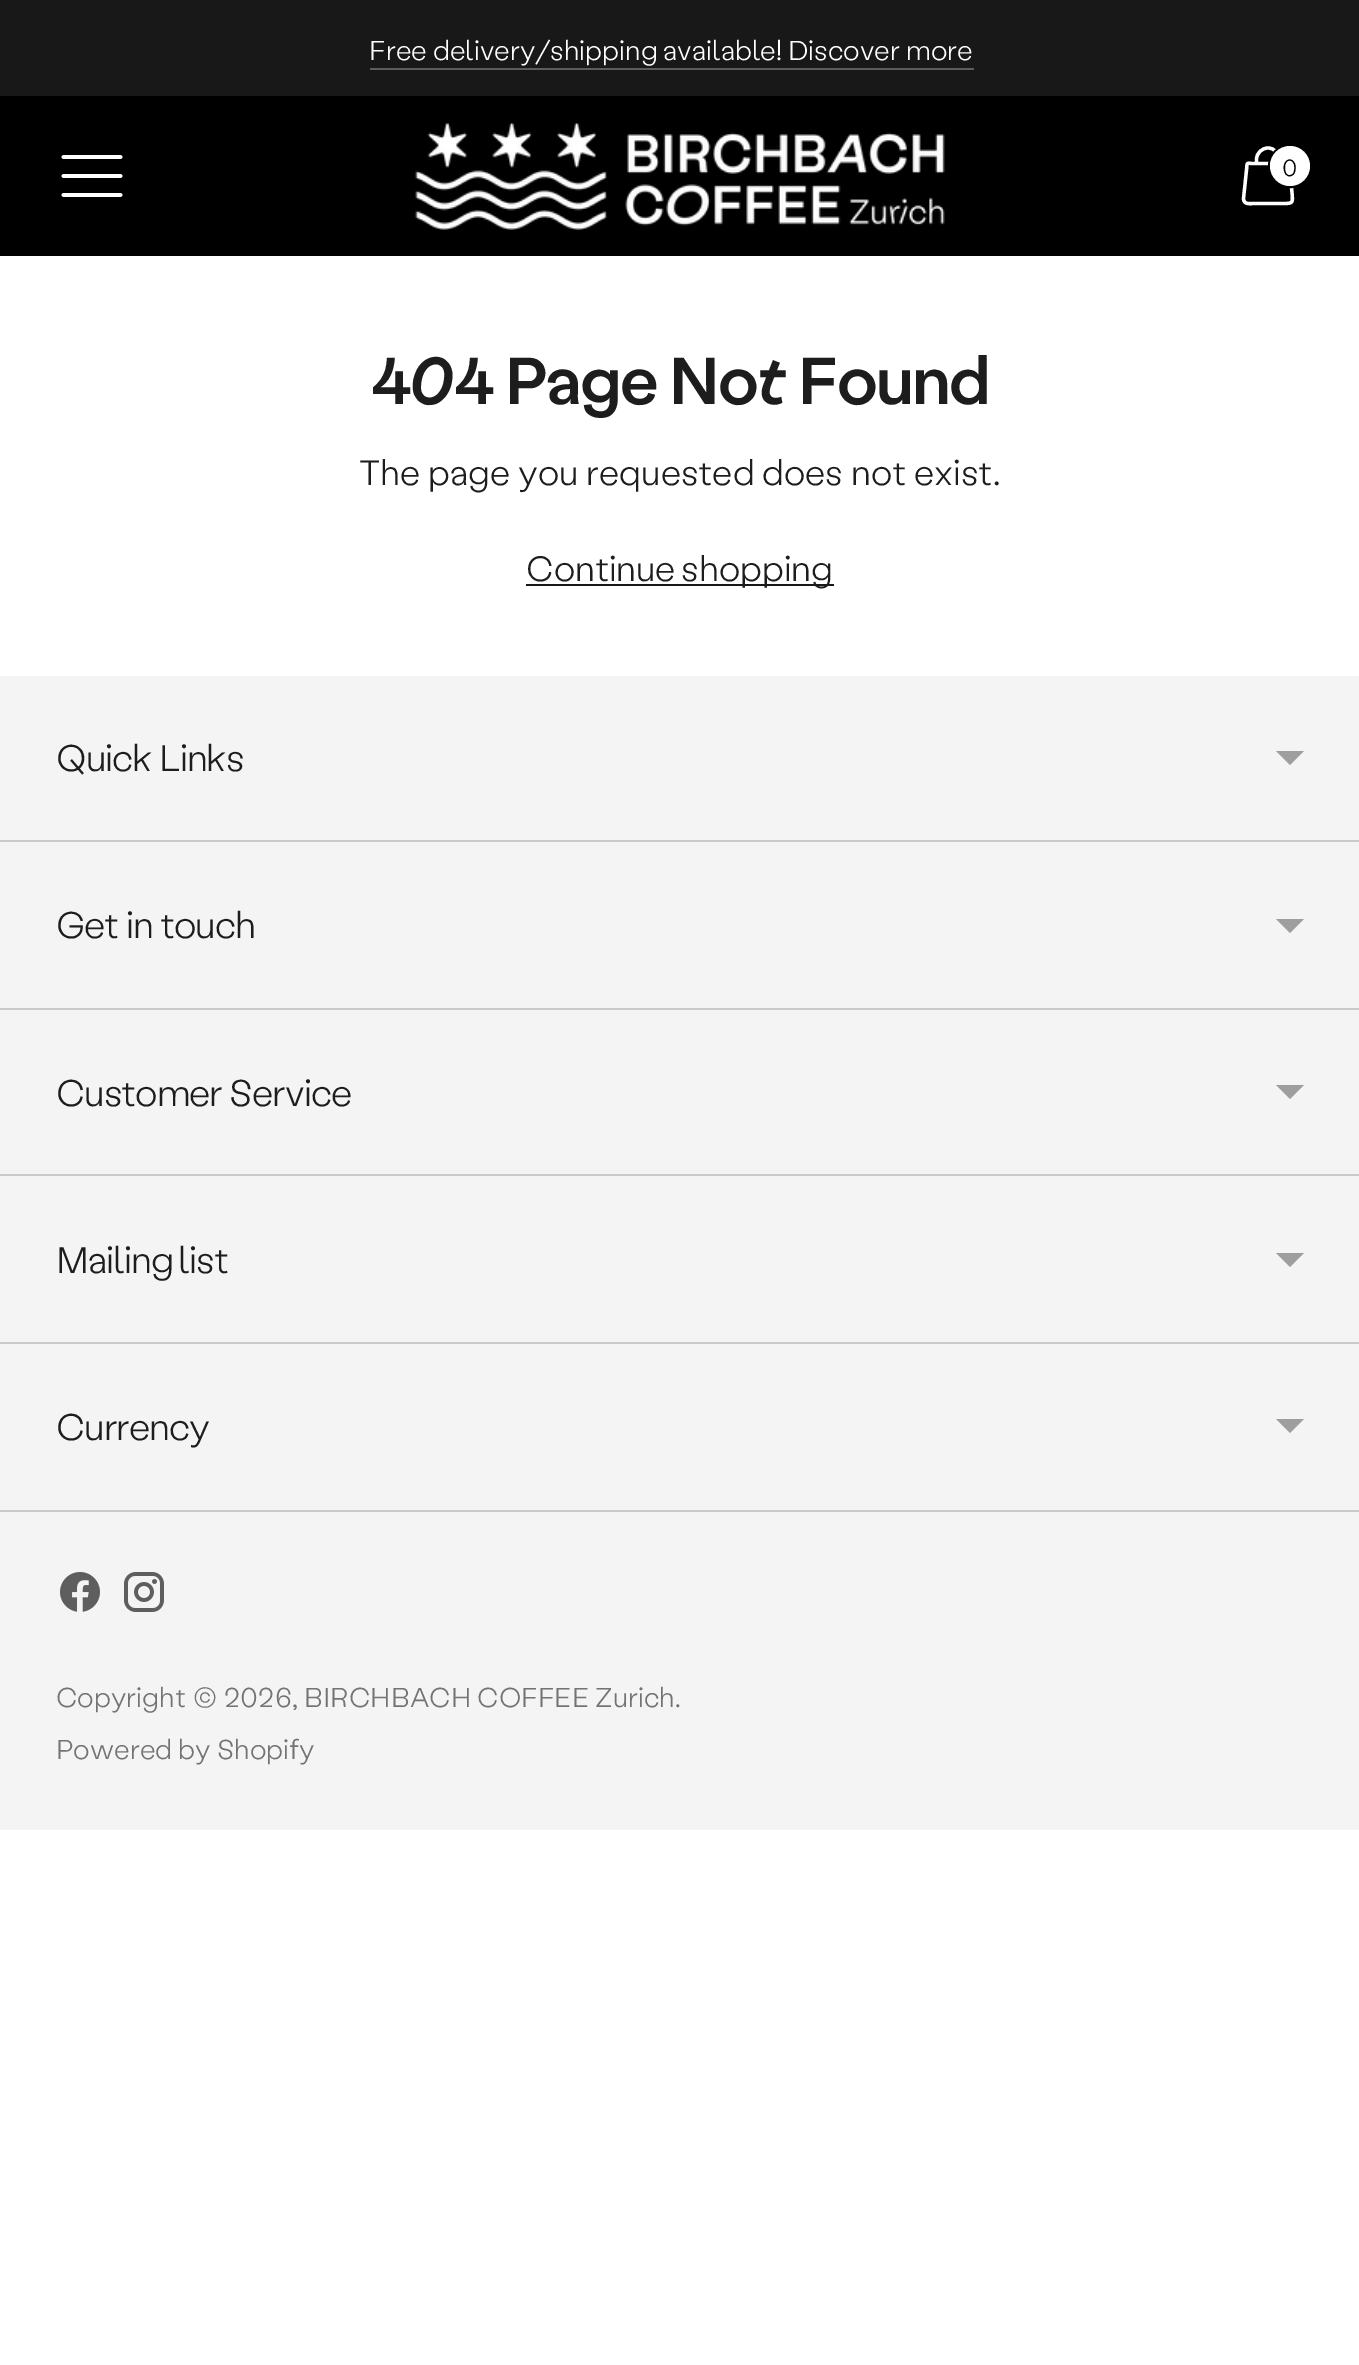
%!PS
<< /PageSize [1359 2365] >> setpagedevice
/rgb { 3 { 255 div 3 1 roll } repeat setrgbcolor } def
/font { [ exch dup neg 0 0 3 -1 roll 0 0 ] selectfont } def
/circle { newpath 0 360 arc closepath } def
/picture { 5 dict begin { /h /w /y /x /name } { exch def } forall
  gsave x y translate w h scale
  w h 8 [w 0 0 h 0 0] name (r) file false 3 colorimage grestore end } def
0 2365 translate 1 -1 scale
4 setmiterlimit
255 255 255 rgb
0 0 1359 2365 rectfill
[
  [0 0 1359 96 24 24 24]
  [370 68 604 2 93 93 93]
  [0 96 1359 160 0 0 0]
] { aload pop rgb rectfill } forall
255 255 255 rgb
3.7 setlinewidth
1 setlinecap
1 setlinejoin
63.5 176 moveto 120.5 176 lineto 63.5 157 moveto 120.5 157 lineto 63.5 195 moveto 120.5 195 lineto stroke
(img/1.rgb) 415 123 530 107 picture
3.3 setlinewidth
1289 164 moveto 1292 192.5 lineto 1293 203.5 1293 203.5 1282 203.5 curveto 1254.5 203.5 lineto 1250.5 203.5 1243.5 205 1243.5 198.5 curveto 1246.5 170 lineto 1247.5 161.5 1245.5 163.5 1254.5 163.5 curveto 1268 163.5 lineto 1279.5 163.5 1289 162.5 1289 164 curveto closepath 1279.5 163.5 moveto 1279.5 159.5 lineto 1279.5 153 1274 148 1268 148 curveto 1262 148 1256.5 153 1256.5 159.5 curveto 1256.5 163.5 lineto stroke
0 0 0 rgb
2 setlinewidth
0 setlinecap
0 setlinejoin
1290 166 21 circle stroke
255 255 255 rgb
1290 166 20 circle fill
[
  [526 584 308 2 24 24 24]
  [0 676 1359 1154 244 244 244]
  [0 840 1359 2 201 201 201]
] { aload pop rgb rectfill } forall
158 158 158 rgb
1276 751 moveto 1290 765 lineto 1304 751 lineto closepath fill
201 201 201 rgb
0 1008 1359 2 rectfill
158 158 158 rgb
1276 919 moveto 1290 933 lineto 1304 919 lineto closepath fill
201 201 201 rgb
0 1174 1359 2 rectfill
158 158 158 rgb
1276 1085 moveto 1290 1099 lineto 1304 1085 lineto closepath fill
201 201 201 rgb
0 1342 1359 2 rectfill
158 158 158 rgb
1276 1253 moveto 1290 1267 lineto 1304 1253 lineto closepath fill
201 201 201 rgb
0 1510 1359 2 rectfill
158 158 158 rgb
1276 1419 moveto 1290 1433 lineto 1304 1419 lineto closepath fill
(img/2.rgb) 60 1572 40 40 picture
(img/3.rgb) 124 1572 40 40 picture
/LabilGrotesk-Light 28 font
255 255 255 rgb
369 60 moveto -0.5 0 32 (Free delivery/shipping available! Discover more) widthshow
/LabilGrotesk-Light 24 font
0 0 0 rgb
1282 176 moveto (0) show
/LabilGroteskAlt-Medium 68 font
29 29 29 rgb
371 404 moveto -1.75 0 (404 Page Not Found) ashow
/LabilGrotesk-Light 36 font
359 485 moveto (The page you requested does not exist.) show
526 581 moveto -2 0 32 (Continue shopping) widthshow
/LabilGrotesk-Light 38 font
56 771 moveto -1 0 (Quick Links) ashow
56 938 moveto -1 0 (Get in touch) ashow
56 1106 moveto -1 0 (Customer Service) ashow
56 1273 moveto -2 0 32 -1 0 (Mailing list) awidthshow
56 1440 moveto -1 0 (Currency) ashow
/LabilGrotesk-Light 28 font
115 115 115 rgb
56 1707 moveto (Copyright © 2026, BIRCHBACH COFFEE Zurich.) show
56 1759 moveto (Powered by Shopify) show
showpage
